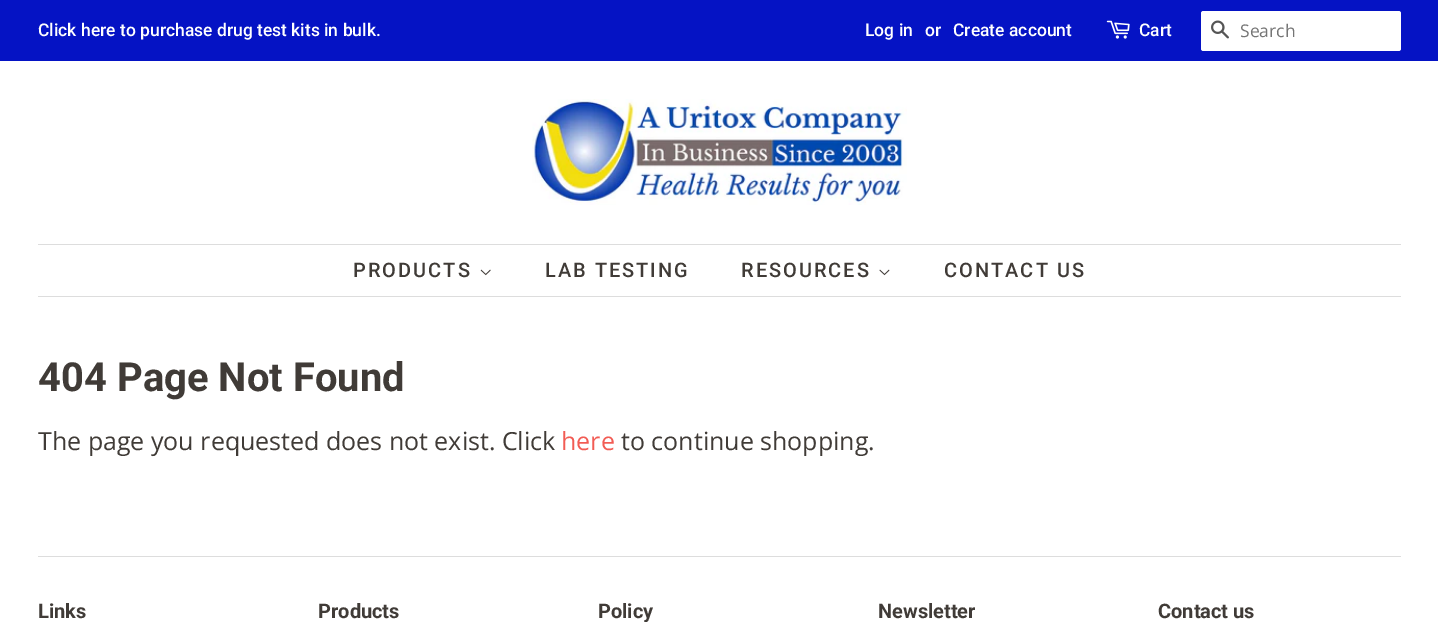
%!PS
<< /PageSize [1438 622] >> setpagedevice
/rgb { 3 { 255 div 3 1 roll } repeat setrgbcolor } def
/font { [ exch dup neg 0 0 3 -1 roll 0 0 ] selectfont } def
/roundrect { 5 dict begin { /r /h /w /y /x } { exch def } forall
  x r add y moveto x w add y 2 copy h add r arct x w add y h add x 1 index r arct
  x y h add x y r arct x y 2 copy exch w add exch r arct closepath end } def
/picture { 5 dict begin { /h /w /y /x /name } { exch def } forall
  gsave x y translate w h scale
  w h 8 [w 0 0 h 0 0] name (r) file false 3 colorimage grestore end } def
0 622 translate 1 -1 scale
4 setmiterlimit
255 255 255 rgb
0 0 1438 622 rectfill
5 19 196 rgb
0 0 1438 61 rectfill
(img/1.rgb) 1106 20 24 19 picture
255 255 255 rgb
1201 11 200 40 2.5 roundrect fill
(img/2.rgb) 1211 20 18 19 picture
(img/3.rgb) 532 99 375 106 picture
221 221 221 rgb
38 244 1363 1 rectfill
38 296 1363 1 rectfill
(img/4.rgb) 480 269 11 7 picture
(img/5.rgb) 879 269 11 7 picture
38 556 1363 1 rectfill
/Roboto-Medium 17.5 font
255 255 255 rgb
[
  [(Click here to purchase drug test kits in bulk.) 38 36]
  [(Log in) 865 36]
  [(or) 925 36]
  [(Create account) 953 36]
  [(Cart) 1139 36]
] { aload pop moveto show } forall
/OpenSans-Regular 17.5 font
117 117 117 rgb
1240 37 moveto (Search) show
/Roboto-Medium 20 font
64 59 55 rgb
353 277 moveto 2 0 (PRODUCTS) ashow
545 277 moveto 2 0 (LAB TESTING) ashow
741 277 moveto 2 0 (RESOURCES) ashow
944 277 moveto 2 0 (CONTACT US) ashow
/Roboto-Bold 40 font
38 391 moveto (404 Page Not Found) show
/OpenSans-Regular 25 font
38 450 moveto (The page you requested does not exist. Click) show
242 92 84 rgb
561 450 moveto (here) show
64 59 55 rgb
621 450 moveto (to continue shopping.) show
/Roboto-Bold 20 font
[
  [(Links) 38 618]
  [(Products) 318 618]
  [(Policy) 598 618]
  [(Newsletter) 878 618]
  [(Contact us) 1158 618]
] { aload pop moveto show } forall
showpage
